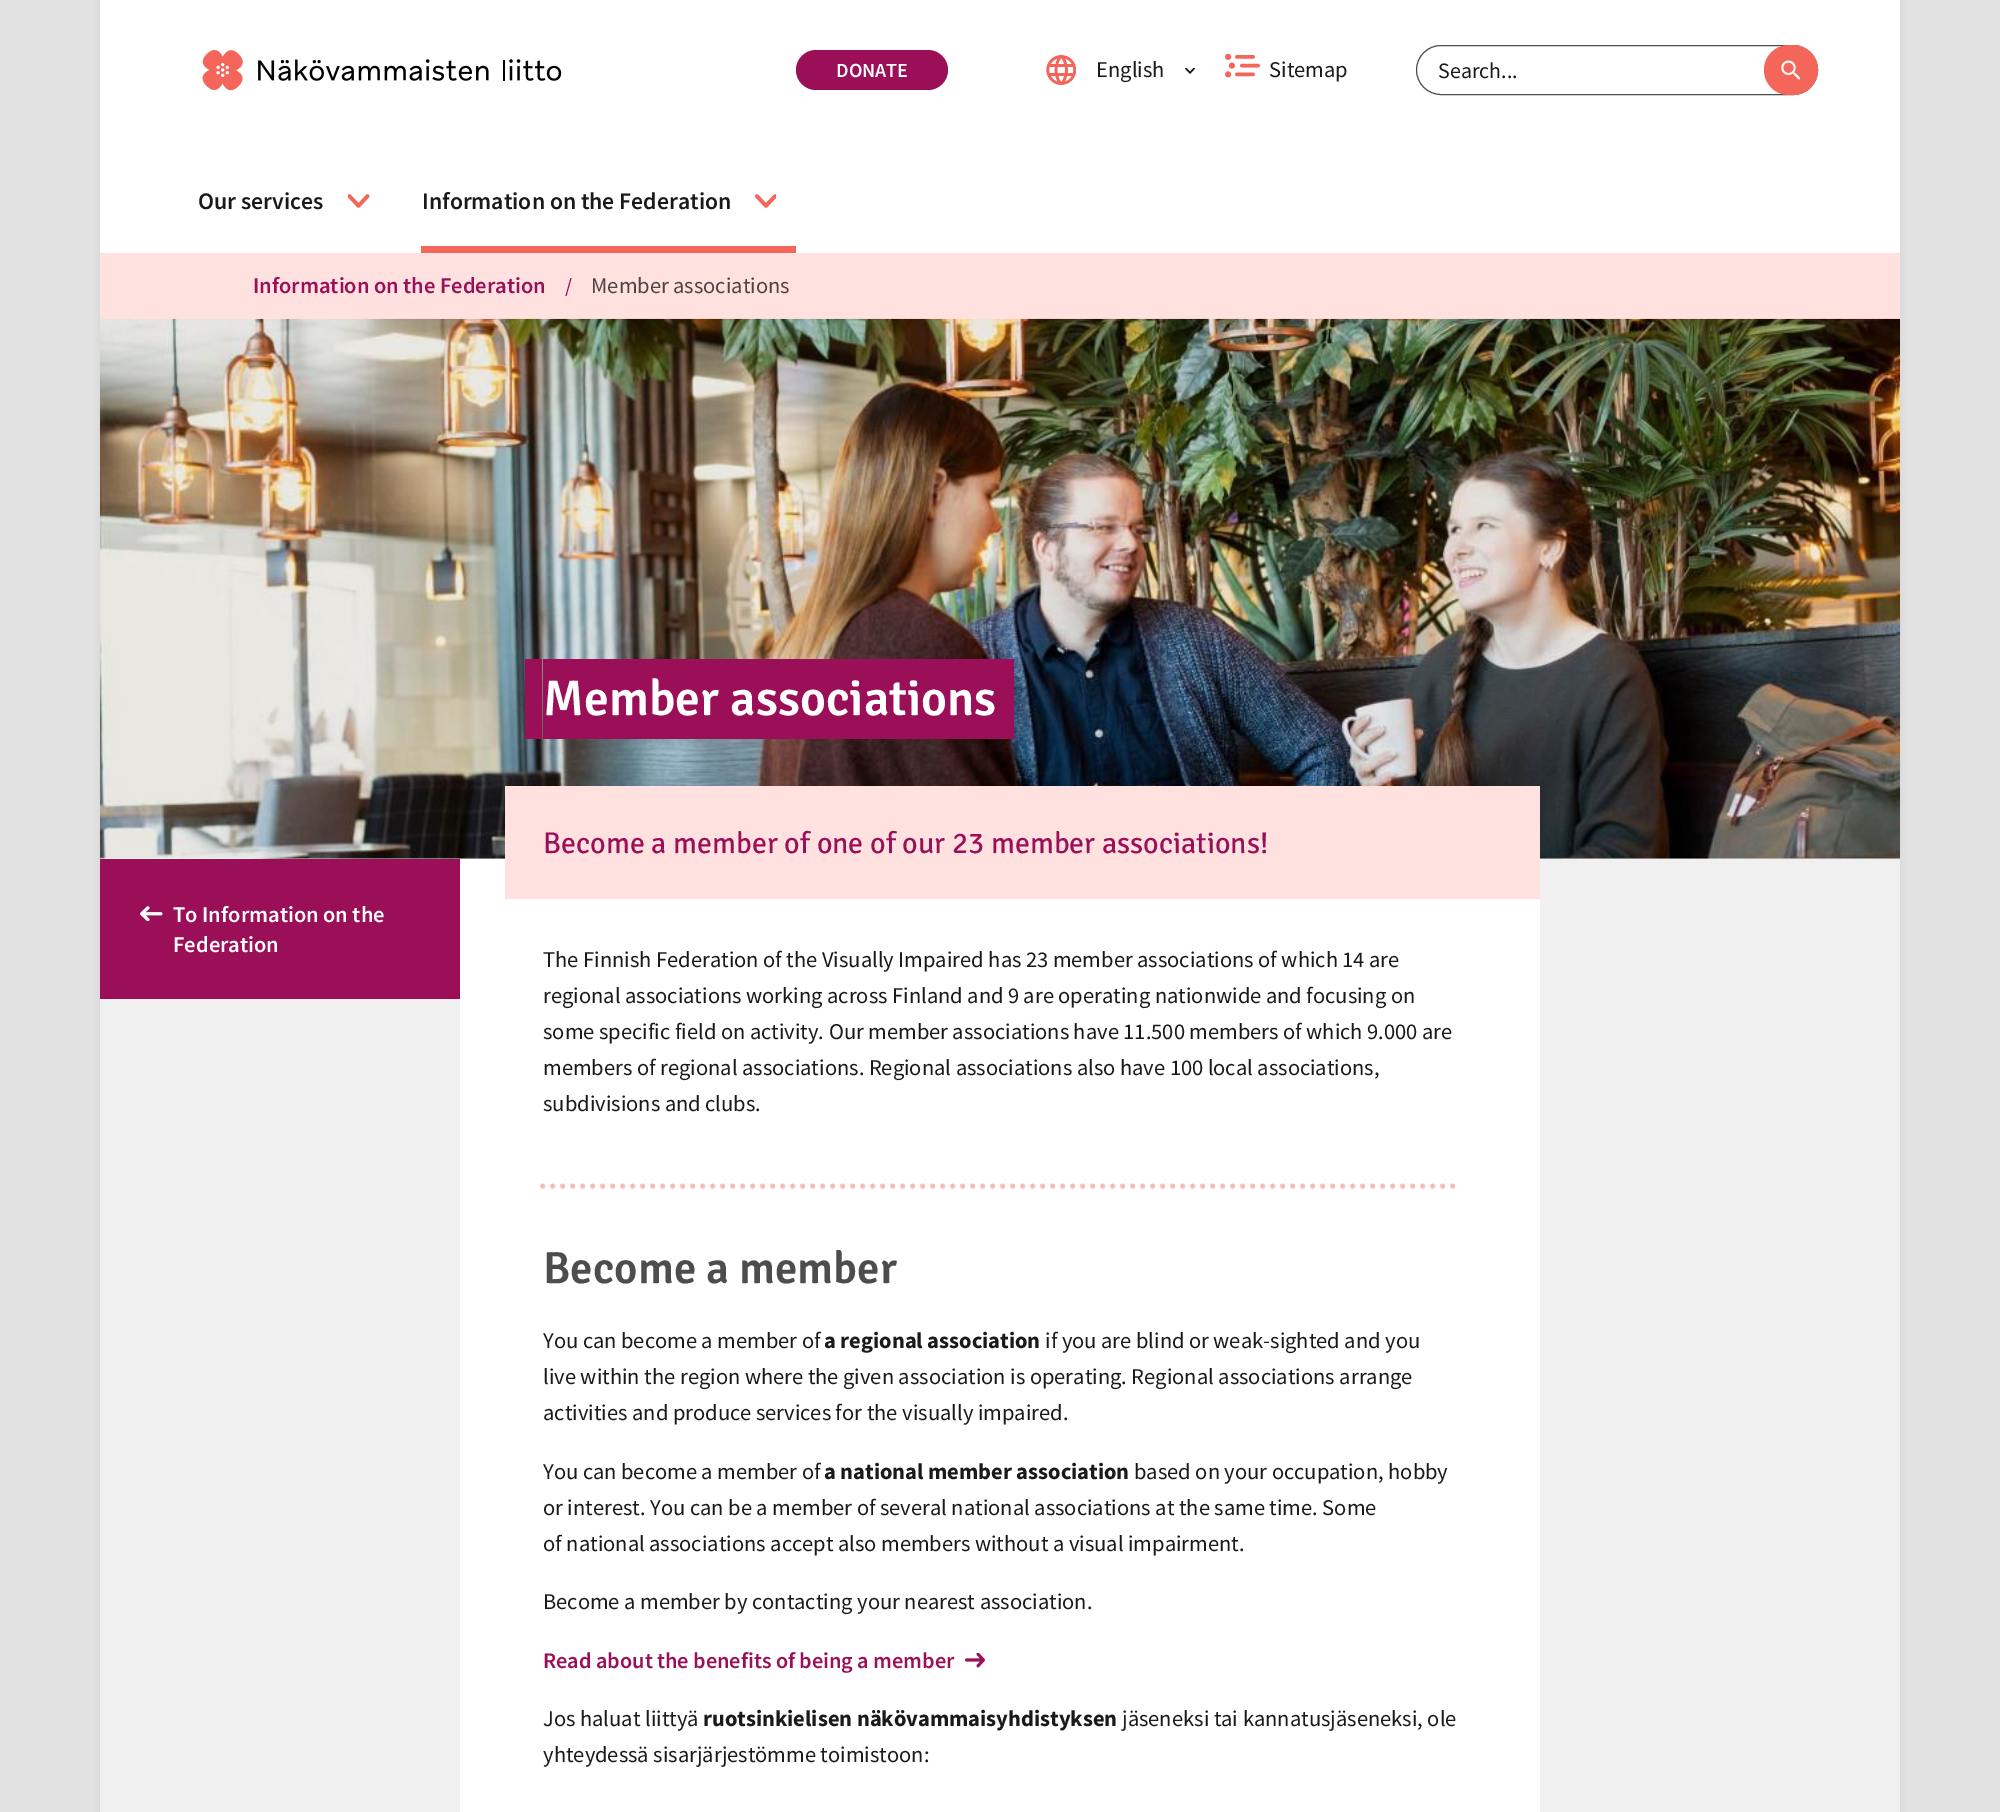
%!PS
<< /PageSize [2000 1812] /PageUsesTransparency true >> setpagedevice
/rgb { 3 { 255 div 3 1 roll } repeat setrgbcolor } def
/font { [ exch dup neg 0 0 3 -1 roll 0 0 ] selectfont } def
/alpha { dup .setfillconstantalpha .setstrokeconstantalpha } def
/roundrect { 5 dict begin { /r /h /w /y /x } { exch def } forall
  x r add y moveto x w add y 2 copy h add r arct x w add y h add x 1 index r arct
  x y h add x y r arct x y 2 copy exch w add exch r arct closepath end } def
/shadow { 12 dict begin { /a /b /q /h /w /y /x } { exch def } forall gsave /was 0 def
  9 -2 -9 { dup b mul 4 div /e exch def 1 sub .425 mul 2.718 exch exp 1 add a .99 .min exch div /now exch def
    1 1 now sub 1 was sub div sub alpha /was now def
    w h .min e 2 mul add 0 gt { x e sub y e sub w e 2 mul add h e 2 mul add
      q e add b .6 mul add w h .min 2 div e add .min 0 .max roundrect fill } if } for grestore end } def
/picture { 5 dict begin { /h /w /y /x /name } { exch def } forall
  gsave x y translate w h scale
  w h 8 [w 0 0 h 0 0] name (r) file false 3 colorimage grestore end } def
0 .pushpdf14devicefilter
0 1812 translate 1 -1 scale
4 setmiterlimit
225 225 225 rgb
0 0 2000 1812 rectfill
0 0 0 rgb
100 0 1800 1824 0 4 0.05 shadow
240 240 240 rgb
100 859 1800 953 rectfill
255 255 255 rgb
100 0 1800 253 rectfill
(img/1.rgb) 202 50 360 41 picture
155 14 88 rgb
796 50 152 40 20 roundrect fill
(img/2.rgb) 1046 55 30 30 picture
(img/3.rgb) 1185 68 10 6 picture
(img/4.rgb) 1225 54 35 24 picture
77 77 77 rgb
1416.5 45.5 401 49 24.5 roundrect stroke
244 101 90 rgb
1764 45 54 50 25 roundrect fill
(img/5.rgb) 1781 60 19 20 picture
(img/6.rgb) 348 194 22 14 picture
(img/7.rgb) 755 194 21 14 picture
421 246 375 7 rectfill
255 225 223 rgb
100 253 1800 66 rectfill
155 14 88 rgb
570.5 278 moveto 571.5 278 lineto 566.5 296 lineto 565.5 296 lineto closepath fill
255 255 255 rgb
100 858 1800 1 rectfill
(img/8.rgb) 100 318 1800 541 picture
155 14 88 rgb
525 659 moveto 525 739 lineto 979 739 lineto 542 739 lineto 542 659 lineto closepath fill
560 739 moveto 1014 739 lineto 1014 659 lineto 996 659 lineto 996 739 lineto closepath fill
[
  [543 659 453 80 155 14 88]
  [460 859 1080 953 255 255 255]
  [505 786 1035 113 255 225 223]
  [100 859 360 140 155 14 88]
] { aload pop rgb rectfill } forall
(img/9.rgb) 140 906 23 15 picture
249 186 182 rgb
5 setlinewidth
1 setlinecap
[0 10] 0 setdash
542.5 1186 moveto 1457.5 1186 lineto stroke
(img/10.rgb) 965 1653 20 15 picture
/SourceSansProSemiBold-SemiBold 20 font
255 255 255 rgb
836 77 moveto (DONATE) show
/SourceSansPro-Regular 22.5 font
26 26 26 rgb
1096 77 moveto (English) show
1269 77 moveto (Sitemap) show
/SourceSansPro-Regular 22 font
1438 78 moveto (Search...) show
/SourceSansProSemiBold-SemiBold 23.75 font
198 209 moveto (Our services) show
422 209 moveto (Information on the Federation) show
/SourceSansProSemiBold-SemiBold 22.5 font
155 14 88 rgb
253 293 moveto (Information on the Federation) show
/SourceSansPro-Regular 22.5 font
77 68 67 rgb
591 293 moveto (Member associations) show
/SignikaNegative-SemiBold 50 font
255 255 255 rgb
543 715 moveto (Member associations) show
/SignikaNegative-Regular 30 font
155 14 88 rgb
543 853 moveto (Become a member of one of our 23 member associations!) show
/SourceSansProSemiBold-SemiBold 22.5 font
255 255 255 rgb
173 922 moveto (To Information on the) show
173 952 moveto (Federation) show
/SourceSansPro-Regular 22.5 font
26 26 26 rgb
[
  [(The Finnish Federation of the Visually Impaired has 23 member associations of which 14 are) 543 967]
  [(regional associations working across Finland and 9 are operating nationwide and focusing on) 543 1003]
  [(some specific field on activity. Our member associations have 11.500 members of which 9.000 are) 543 1039]
  [(members of regional associations. Regional associations also have 100 local associations,) 543 1075]
  [(subdivisions and clubs.) 543 1111]
] { aload pop moveto show } forall
/SignikaNegative-SemiBold 45 font
77 77 77 rgb
543 1283 moveto (Become a member) show
/SourceSansPro-Regular 22.5 font
26 26 26 rgb
543 1348 moveto (You can become a member of) show
/SourceSansPro-Bold 22.5 font
824 1348 moveto (a regional association) show
/SourceSansPro-Regular 22.5 font
[
  [(if you are blind or weak-sighted and you) 1045 1348]
  [(live within the region where the given association is operating. Regional associations arrange) 543 1384]
  [(activities and produce services for the visually impaired.) 543 1420]
  [(You can become a member of) 543 1479]
] { aload pop moveto show } forall
/SourceSansPro-Bold 22.5 font
824 1479 moveto (a national member association) show
/SourceSansPro-Regular 22.5 font
[
  [(based on your occupation, hobby) 1134 1479]
  [(or interest. You can be a member of several national associations at the same time. Some) 543 1515]
  [(of national associations accept also members without a visual impairment.) 543 1551]
  [(Become a member by contacting your nearest association.) 543 1609]
] { aload pop moveto show } forall
/SourceSansProSemiBold-SemiBold 22.25 font
155 14 88 rgb
543 1668 moveto (Read about the benefits of being a member) show
/SourceSansPro-Regular 22.5 font
26 26 26 rgb
543 1726 moveto (Jos haluat liittyä) show
/SourceSansPro-Bold 22.5 font
703 1726 moveto (ruotsinkielisen näkövammaisyhdistyksen) show
/SourceSansPro-Regular 22.5 font
1122 1726 moveto (jäseneksi tai kannatusjäseneksi, ole) show
543 1762 moveto (yhteydessä sisarjärjestömme toimistoon:) show
.poppdf14devicefilter showpage
